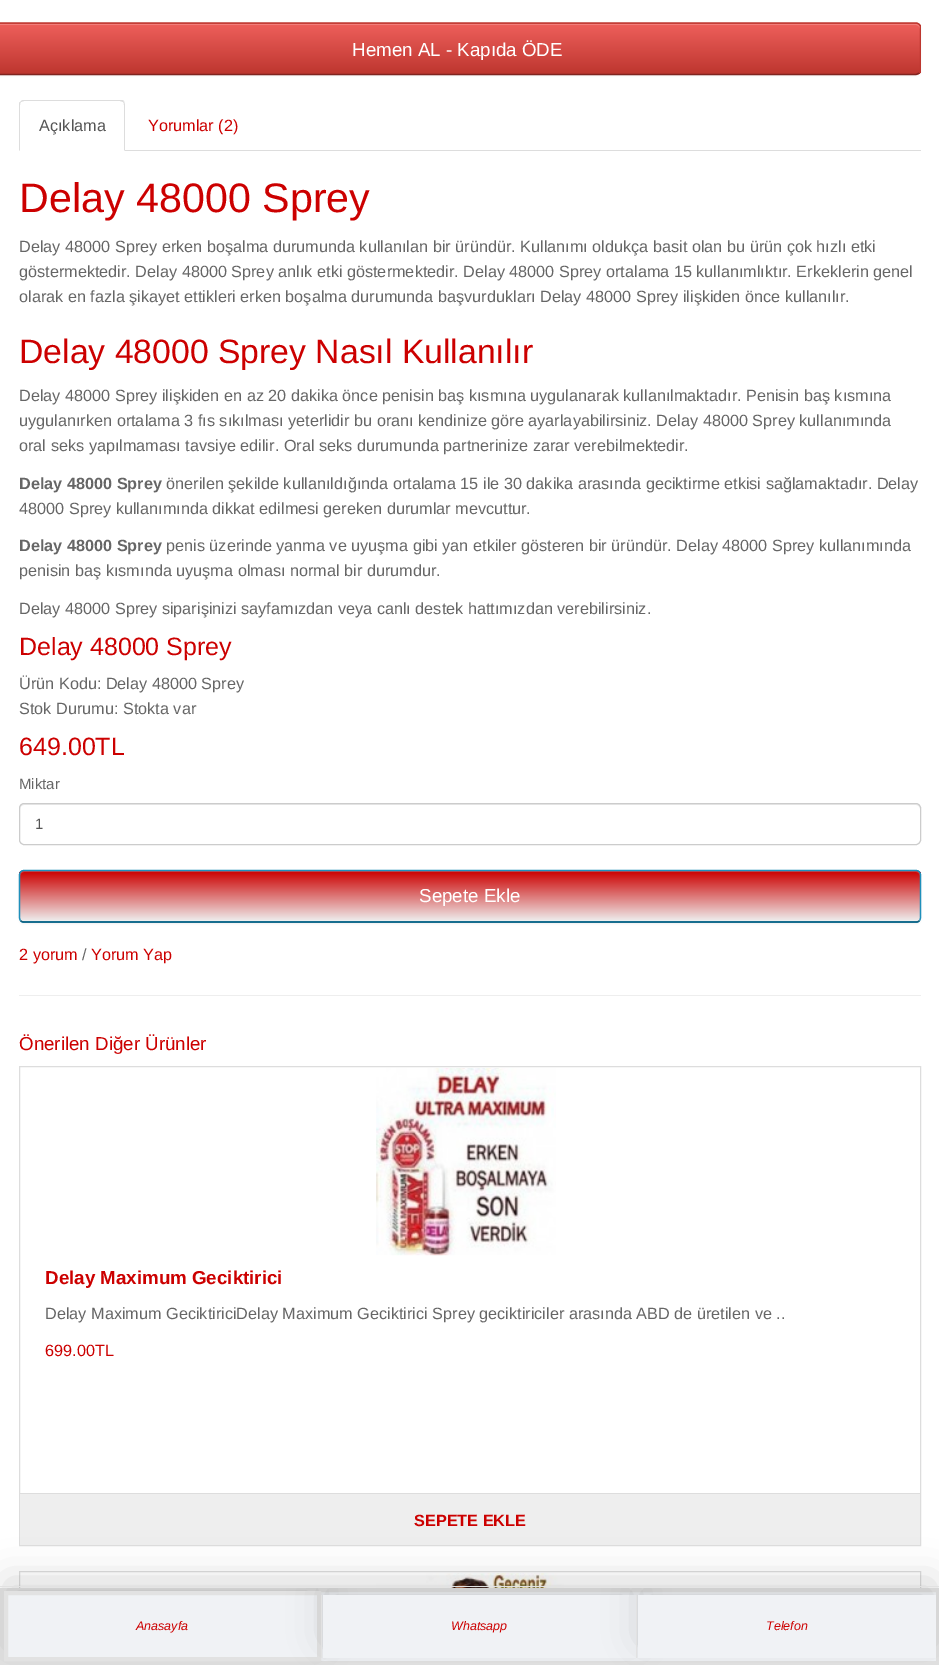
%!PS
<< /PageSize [939 1665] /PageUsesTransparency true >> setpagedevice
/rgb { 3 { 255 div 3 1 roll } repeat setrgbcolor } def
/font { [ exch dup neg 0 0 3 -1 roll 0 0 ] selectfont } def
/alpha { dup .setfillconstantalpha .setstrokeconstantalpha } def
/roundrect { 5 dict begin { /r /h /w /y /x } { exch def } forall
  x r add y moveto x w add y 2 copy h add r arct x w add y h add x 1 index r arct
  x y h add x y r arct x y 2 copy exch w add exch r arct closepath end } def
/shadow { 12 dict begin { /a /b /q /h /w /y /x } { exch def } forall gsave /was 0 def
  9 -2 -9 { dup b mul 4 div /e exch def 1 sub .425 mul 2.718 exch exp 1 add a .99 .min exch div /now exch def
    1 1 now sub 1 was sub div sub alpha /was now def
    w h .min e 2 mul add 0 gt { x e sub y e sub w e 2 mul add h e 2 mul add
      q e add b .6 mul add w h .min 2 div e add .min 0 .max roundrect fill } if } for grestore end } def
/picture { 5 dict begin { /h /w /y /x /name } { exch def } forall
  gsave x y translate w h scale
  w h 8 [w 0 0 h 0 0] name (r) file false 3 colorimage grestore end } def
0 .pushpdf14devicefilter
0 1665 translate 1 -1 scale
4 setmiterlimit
255 255 255 rgb
0 0 939 1665 rectfill
0 0 0 rgb
-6 24 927 52 5 1 0.05 shadow
218 79 73 rgb
-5 23 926 52 5 roundrect fill
gsave
-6 23 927 52 5 roundrect clip newpath
gsave 0 24 moveto 921 24 lineto 921 74 lineto 0 74 lineto closepath clip newpath
<< /ShadingType 2 /ColorSpace /DeviceRGB /Coords [458 24 458 74] /Extend [true true] /Function << /FunctionType 2 /Domain [0 1] /C0 [0.933 0.373 0.357] /C1 [0.741 0.212 0.184] /N 1 >> >> shfill grestore
grestore
241 127 124 rgb
-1 25 moveto 916 25 lineto 918 25 920 27 920 29 curveto 920 26 919 24 916 24 curveto -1 24 lineto -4 24 -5 26 -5 29 curveto -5 27 -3 25 -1 25 curveto closepath fill
128 36 32 rgb
1.2 setlinewidth
919.5 73 moveto 916 74.5 lineto -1 74.5 lineto -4.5 73 lineto stroke
gsave
0 0 921 100 rectclip
189 54 47 rgb
-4.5 73 moveto -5.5 71 lineto -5.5 26 lineto -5 24.5 -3 23 -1.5 23 curveto 916 23 lineto 918 23 920 24.5 920.5 26 curveto 920.5 71 lineto 919.5 73 lineto stroke
grestore
221 221 221 rgb
125 150 796 1 rectfill
24 100 moveto 22 100 21 101 20 102 curveto 21 102 lineto 24 101 lineto 120 101 lineto 123 102 lineto 124 101 lineto 123 100 122 100 120 100 curveto closepath fill
125 151 moveto 125 105 lineto 125 104 124 102 124 101 curveto 123 102 lineto 124 103 124 104 124 105 curveto 124 150 lineto closepath fill
20 102 moveto 19 102 19 104 19 105 curveto 19 151 lineto 20 150 lineto 20 105 lineto 20 104 20 103 21 102 curveto closepath fill
236 236 236 rgb
24 805 moveto 916 805 lineto 918 805 920 807 920 809 curveto 920 806 919 804 916 804 curveto 24 804 lineto 21 804 20 806 20 809 curveto 20 807 22 805 24 805 curveto closepath fill
204 204 204 rgb
1 setlinewidth
19.5 803.5 901 41 4.5 roundrect stroke
0 0 0 rgb
19 871 902 53 5 1 0.05 shadow
34 154 200 rgb
19 870 902 53 5 roundrect fill
gsave
19 870 902 53 5 roundrect clip newpath
gsave 19 871 moveto 921 871 lineto 921 921 lineto 19 921 lineto closepath clip newpath
<< /ShadingType 2 /ColorSpace /DeviceRGB /Coords [470 871 470 921] /Extend [true true] /Function << /FunctionType 2 /Domain [0 1] /C0 [0.8 0 0] /C1 [0.933 0.933 0.933] /N 1 >> >> shfill grestore
grestore
0.2 alpha
255 255 255 rgb
24 872 moveto 916 872 lineto 918 872 920 874 920 876 curveto 920 873 919 871 916 871 curveto 24 871 lineto 21 871 20 873 20 876 curveto 20 874 22 872 24 872 curveto closepath fill
1 alpha
20 94 122 rgb
1.2 setlinewidth
919.5 920.5 moveto 918.5 921.5 917.5 922 916 922 curveto 24 922 lineto 22.5 922 21.5 921.5 20.5 920.5 curveto stroke
31 144 187 rgb
20.5 920.5 moveto 20 920 19.5 918.5 19.5 917.5 curveto 19.5 875 lineto 19.5 874 20 872.5 20.5 872 curveto 21.5 871 22.5 870.5 24 870.5 curveto 916 870.5 lineto 917.5 870.5 918.5 871 919.5 872 curveto 920 872.5 920.5 874 920.5 875 curveto 920.5 917.5 lineto 920.5 918.5 920 920 919.5 920.5 curveto stroke
238 238 238 rgb
19 995 902 1 rectfill
221 221 221 rgb
1 setlinewidth
19.5 1066.5 901 479 rectstroke
(img/1.rgb) 376 1068 180 188 picture
238 238 238 rgb
20 1494 900 51 rectfill
221 221 221 rgb
20 1493 900 1 rectfill
19.5 1571.5 901 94 rectstroke
(img/2.rgb) 376 1573 188 15 picture
0 0 0 rgb
6 1580 928 66 0 19 0.15 shadow
226 226 226 rgb
0 1586 939 1 rectfill
240 242 245 rgb
321 1592 615 69 rectfill
226 226 226 rgb
4 setlinewidth
2 1590 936 73 rectstroke
gsave
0 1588 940 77 rectclip
0 0 0 rgb
10 1585 305 58 0 19 0.15 shadow
grestore
240 242 245 rgb
6 1593 moveto 319 1593 lineto 319 1659 lineto 6 1659 lineto closepath gsave fill grestore
226 226 226 rgb
stroke
gsave
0 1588 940 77 rectclip
0 0 0 rgb
328 1589 302 50 0 19 0.15 shadow
grestore
240 242 245 rgb
323 1595 313 63 rectfill
226 226 226 rgb
321 1595 1 63 rectfill
gsave
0 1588 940 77 rectclip
0 0 0 rgb
643 1589 287 50 0 19 0.15 shadow
grestore
240 242 245 rgb
638 1595 298 63 rectfill
226 226 226 rgb
636 1595 1 63 rectfill
/LiberationSans-Regular 18.75 font
255 255 255 rgb
352 56 moveto (Hemen AL - Kapıda ÖDE) show
/LiberationSans-Regular 16.25 font
85 85 85 rgb
39 131 moveto (Açıklama) show
204 0 0 rgb
148 131 moveto (Yorumlar \(2\)) show
/LiberationSans-Regular 41.25 font
19 212 moveto (Delay 48000 Sprey) show
/LiberationSans-Regular 16.25 font
102 102 102 rgb
[
  [(Delay 48000 Sprey erken boşalma durumunda kullanılan bir üründür. Kullanımı oldukça basit olan bu ürün çok hızlı etki) 19 252]
  [(göstermektedir. Delay 48000 Sprey anlık etki göstermektedir. Delay 48000 Sprey ortalama 15 kullanımlıktır. Erkeklerin genel) 19 277]
  [(olarak en fazla şikayet ettikleri erken boşalma durumunda başvurdukları Delay 48000 Sprey ilişkiden önce kullanılır.) 19 302]
] { aload pop moveto show } forall
/LiberationSans-Regular 33.75 font
204 0 0 rgb
19 363 moveto (Delay 48000 Sprey Nasıl Kullanılır) show
/LiberationSans-Regular 16.25 font
102 102 102 rgb
[
  [(Delay 48000 Sprey ilişkiden en az 20 dakika önce penisin baş kısmına uygulanarak kullanılmaktadır. Penisin baş kısmına) 19 401]
  [(uygulanırken ortalama 3 fıs sıkılması yeterlidir bu oranı kendinize göre ayarlayabilirsiniz. Delay 48000 Sprey kullanımında) 19 426]
  [(oral seks yapılmaması tavsiye edilir. Oral seks durumunda partnerinize zarar verebilmektedir.) 19 451]
] { aload pop moveto show } forall
/LiberationSans-Bold 16.25 font
19 489 moveto (Delay 48000 Sprey) show
/LiberationSans-Regular 16.25 font
166 489 moveto (önerilen şekilde kullanıldığında ortalama 15 ile 30 dakika arasında geciktirme etkisi sağlamaktadır. Delay) show
19 514 moveto (48000 Sprey kullanımında dikkat edilmesi gereken durumlar mevcuttur.) show
/LiberationSans-Bold 16.25 font
19 551 moveto (Delay 48000 Sprey) show
/LiberationSans-Regular 16.25 font
[
  [(penis üzerinde yanma ve uyuşma gibi yan etkiler gösteren bir üründür. Delay 48000 Sprey kullanımında) 166 551]
  [(penisin baş kısmında uyuşma olması normal bir durumdur.) 19 576]
  [(Delay 48000 Sprey siparişinizi sayfamızdan veya canlı destek hattımızdan verebilirsiniz.) 19 614]
] { aload pop moveto show } forall
/LiberationSans-Regular 25 font
204 0 0 rgb
19 655 moveto (Delay 48000 Sprey) show
/LiberationSans-Regular 16.25 font
102 102 102 rgb
19 689 moveto (Ürün Kodu: Delay 48000 Sprey) show
19 714 moveto (Stok Durumu: Stokta var) show
/LiberationSans-Regular 25 font
204 0 0 rgb
19 755 moveto (649.00TL) show
/LiberationSans-Regular 15 font
102 102 102 rgb
19 789 moveto (Miktar) show
85 85 85 rgb
35 829 moveto (1) show
/LiberationSans-Regular 18.75 font
255 255 255 rgb
419 902 moveto (Sepete Ekle) show
/LiberationSans-Regular 16.25 font
204 0 0 rgb
19 960 moveto (2 yorum) show
102 102 102 rgb
82 960 moveto (/) show
204 0 0 rgb
91 960 moveto (Yorum Yap) show
/LiberationSans-Regular 18.75 font
19 1050 moveto (Önerilen Diğer Ürünler) show
/LiberationSans-Bold 18.75 font
45 1284 moveto (Delay Maximum Geciktirici) show
/LiberationSans-Regular 16.25 font
102 102 102 rgb
45 1319 moveto (Delay Maximum GeciktiriciDelay Maximum Geciktirici Sprey geciktiriciler arasında ABD de üretilen ve ..) show
204 0 0 rgb
45 1356 moveto (699.00TL) show
/LiberationSans-Bold 16.25 font
414 1526 moveto (SEPETE EKLE) show
/LiberationSans-Italic 12.5 font
[
  [(Anasayfa) 136 1630]
  [(Whatsapp) 451 1630]
  [(Telefon) 766 1630]
] { aload pop moveto show } forall
.poppdf14devicefilter showpage
